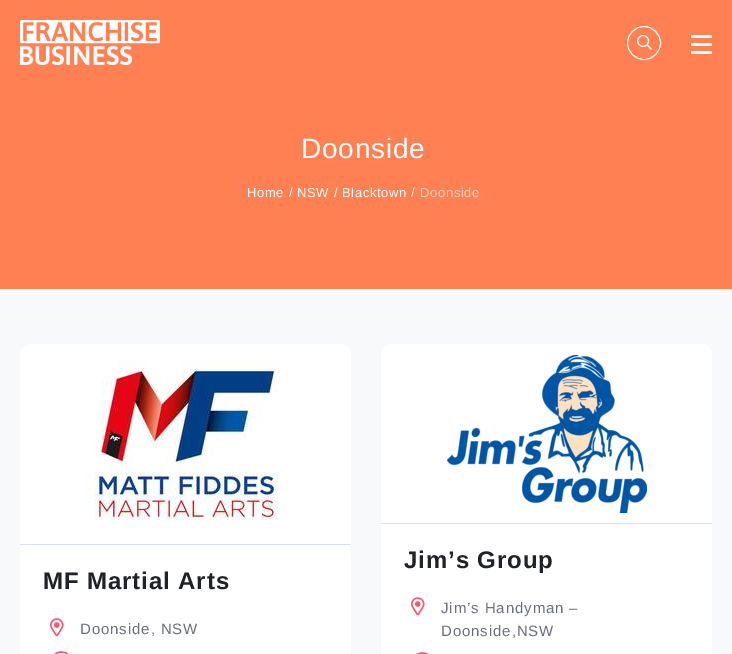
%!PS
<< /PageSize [732 654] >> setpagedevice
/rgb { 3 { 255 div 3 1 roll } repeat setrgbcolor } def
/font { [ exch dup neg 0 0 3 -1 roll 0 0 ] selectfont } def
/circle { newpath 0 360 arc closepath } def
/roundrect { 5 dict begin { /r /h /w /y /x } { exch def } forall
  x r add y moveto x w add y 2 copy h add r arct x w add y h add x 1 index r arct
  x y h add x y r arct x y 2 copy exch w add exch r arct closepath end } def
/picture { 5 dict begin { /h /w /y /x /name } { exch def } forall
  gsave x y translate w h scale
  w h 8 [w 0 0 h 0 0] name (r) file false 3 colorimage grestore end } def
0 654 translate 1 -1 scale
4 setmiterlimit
248 249 251 rgb
0 0 732 654 rectfill
255 128 82 rgb
0 0 732 289 rectfill
(img/1.rgb) 20 20 140 45 picture
255 255 255 rgb
644 43 16.5 circle stroke
(img/2.rgb) 637 34 15 16 picture
691 35 21 3 1.5 roundrect fill
691 43 21 3 1.5 roundrect fill
691 51 21 3 1.5 roundrect fill
20 344 331 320 10 roundrect fill
219 224 234 rgb
20 544 331 1 rectfill
(img/3.rgb) 86 360 193 161 picture
(img/4.rgb) 50 618 14 19 picture
(img/5.rgb) 54 651 14 3 picture
255 255 255 rgb
381 344 331 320 10 roundrect fill
219 224 234 rgb
381 523 331 1 rectfill
(img/6.rgb) 447 355 200 158 picture
(img/4.rgb) 411 597 14 19 picture
(img/7.rgb) 416 652 13 2 picture
/LiberationSans-Regular 28 font
255 255 255 rgb
301 158 moveto 0.75 0 (Doonside) ashow
/LiberationSans-Regular 13 font
247 197 moveto 0.65 0 (Home / NSW / Blacktown /) ashow
255 211 194 rgb
420 197 moveto 0.65 0 (Doonside) ashow
/LiberationSans-Bold 24 font
31 35 39 rgb
43 589 moveto 0.9 0 (MF Martial Arts) ashow
/LiberationSans-Regular 15 font
108 111 124 rgb
80 634 moveto 0.9 0 (Doonside, NSW) ashow
/LiberationSans-Bold 24 font
31 35 39 rgb
404 568 moveto 0.9 0 (Jim’s Group) ashow
/LiberationSans-Regular 15 font
108 111 124 rgb
441 613 moveto 0.9 0 (Jim’s Handyman –) ashow
441 636 moveto 0.9 0 (Doonside,NSW) ashow
showpage
